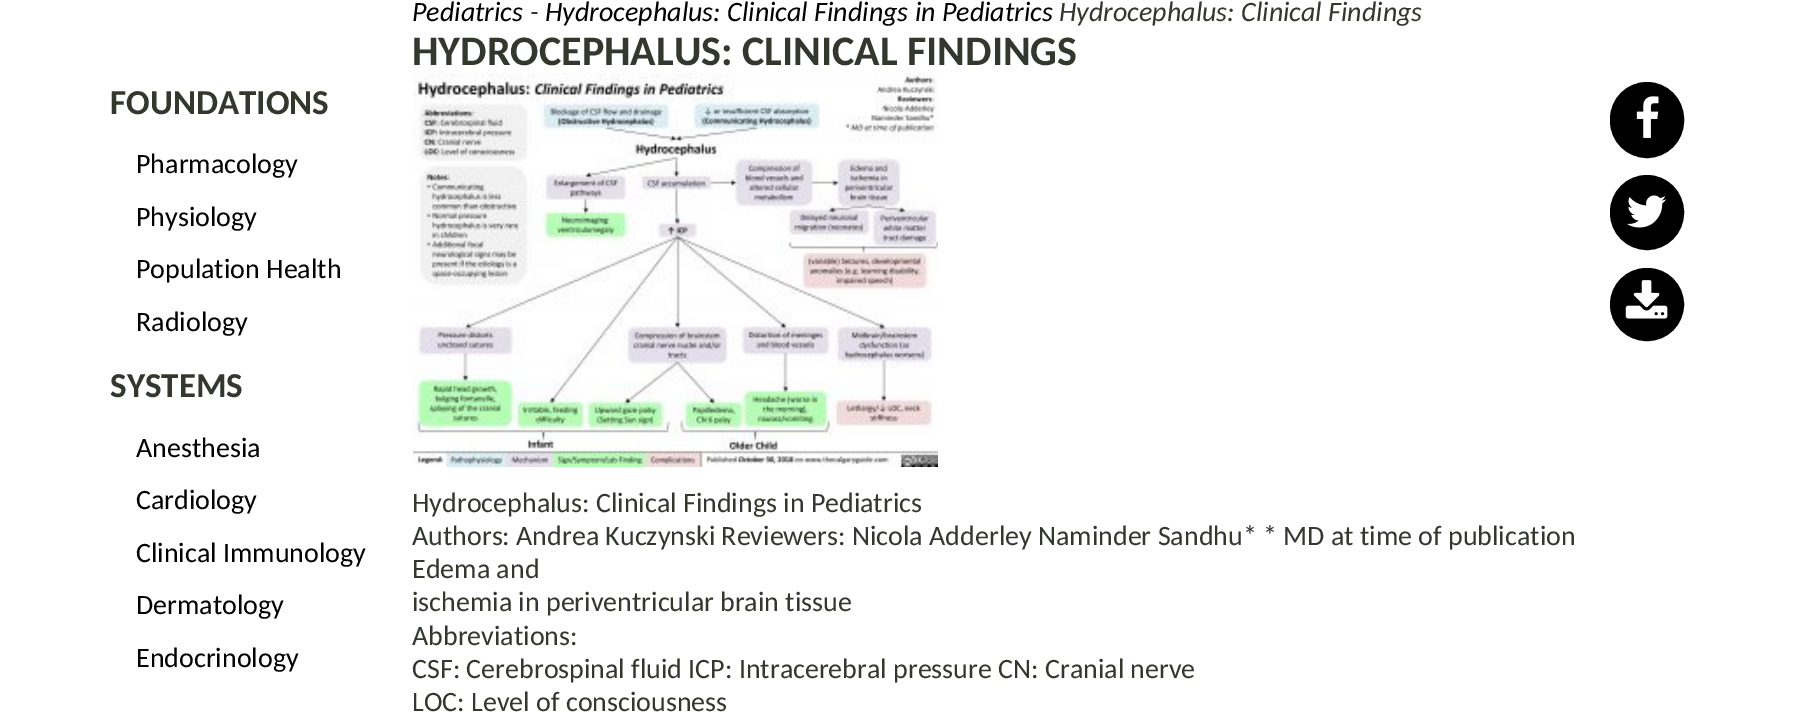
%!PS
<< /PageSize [1803 712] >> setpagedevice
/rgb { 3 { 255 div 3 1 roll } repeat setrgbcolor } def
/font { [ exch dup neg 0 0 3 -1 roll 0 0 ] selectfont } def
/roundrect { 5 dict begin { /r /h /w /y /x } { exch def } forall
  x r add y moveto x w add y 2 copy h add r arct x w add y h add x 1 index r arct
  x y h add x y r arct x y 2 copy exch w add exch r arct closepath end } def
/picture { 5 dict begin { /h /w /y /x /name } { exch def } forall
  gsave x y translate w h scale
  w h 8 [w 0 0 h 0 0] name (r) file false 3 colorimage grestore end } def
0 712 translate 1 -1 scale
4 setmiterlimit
255 255 255 rgb
0 0 1803 712 rectfill
0 0 0 rgb
1611 83 72 74 36 roundrect gsave fill grestore
2 setlinewidth
stroke
(img/1.rgb) 1636 96 23 42 picture
1611 176 72 73 36 roundrect gsave fill grestore
stroke
(img/2.rgb) 1627 195 40 33 picture
1611 269 72 71 35.5 roundrect gsave fill grestore
stroke
(img/3.rgb) 1625 280 43 39 picture
(img/4.rgb) 413 73 525 394 picture
/Carlito-Bold 35 font
52 55 46 rgb
110 114 moveto (FOUNDATIONS) show
/Carlito-Regular 28 font
0 0 0 rgb
[
  [(Pharmacology) 136 173]
  [(Physiology) 136 226]
  [(Population Health) 136 278]
  [(Radiology) 136 331]
] { aload pop moveto show } forall
/Carlito-Bold 35 font
52 55 46 rgb
110 397 moveto (SYSTEMS) show
/Carlito-Regular 28 font
0 0 0 rgb
[
  [(Anesthesia) 136 457]
  [(Cardiology) 136 509]
  [(Clinical Immunology) 136 562]
  [(Dermatology) 136 614]
  [(Endocrinology) 136 667]
] { aload pop moveto show } forall
/Carlito-Italic 28 font
412 21 moveto (Pediatrics) show
52 55 46 rgb
530 21 moveto (-) show
0 0 0 rgb
545 21 moveto (Hydrocephalus: Clinical Findings in Pediatrics) show
52 55 46 rgb
1059 21 moveto (Hydrocephalus: Clinical Findings) show
/Carlito-Bold 42 font
412 65 moveto (HYDROCEPHALUS: CLINICAL FINDINGS) show
/Carlito-Regular 28 font
[
  [(Hydrocephalus: Clinical Findings in Pediatrics) 412 512]
  [(Authors: Andrea Kuczynski Reviewers: Nicola Adderley Naminder Sandhu* * MD at time of publication) 412 545]
  [(Edema and) 412 578]
  [(ischemia in periventricular brain tissue) 412 611]
  [(Abbreviations:) 412 645]
  [(CSF: Cerebrospinal fluid ICP: Intracerebral pressure CN: Cranial nerve) 412 678]
  [(LOC: Level of consciousness) 412 711]
] { aload pop moveto show } forall
showpage
